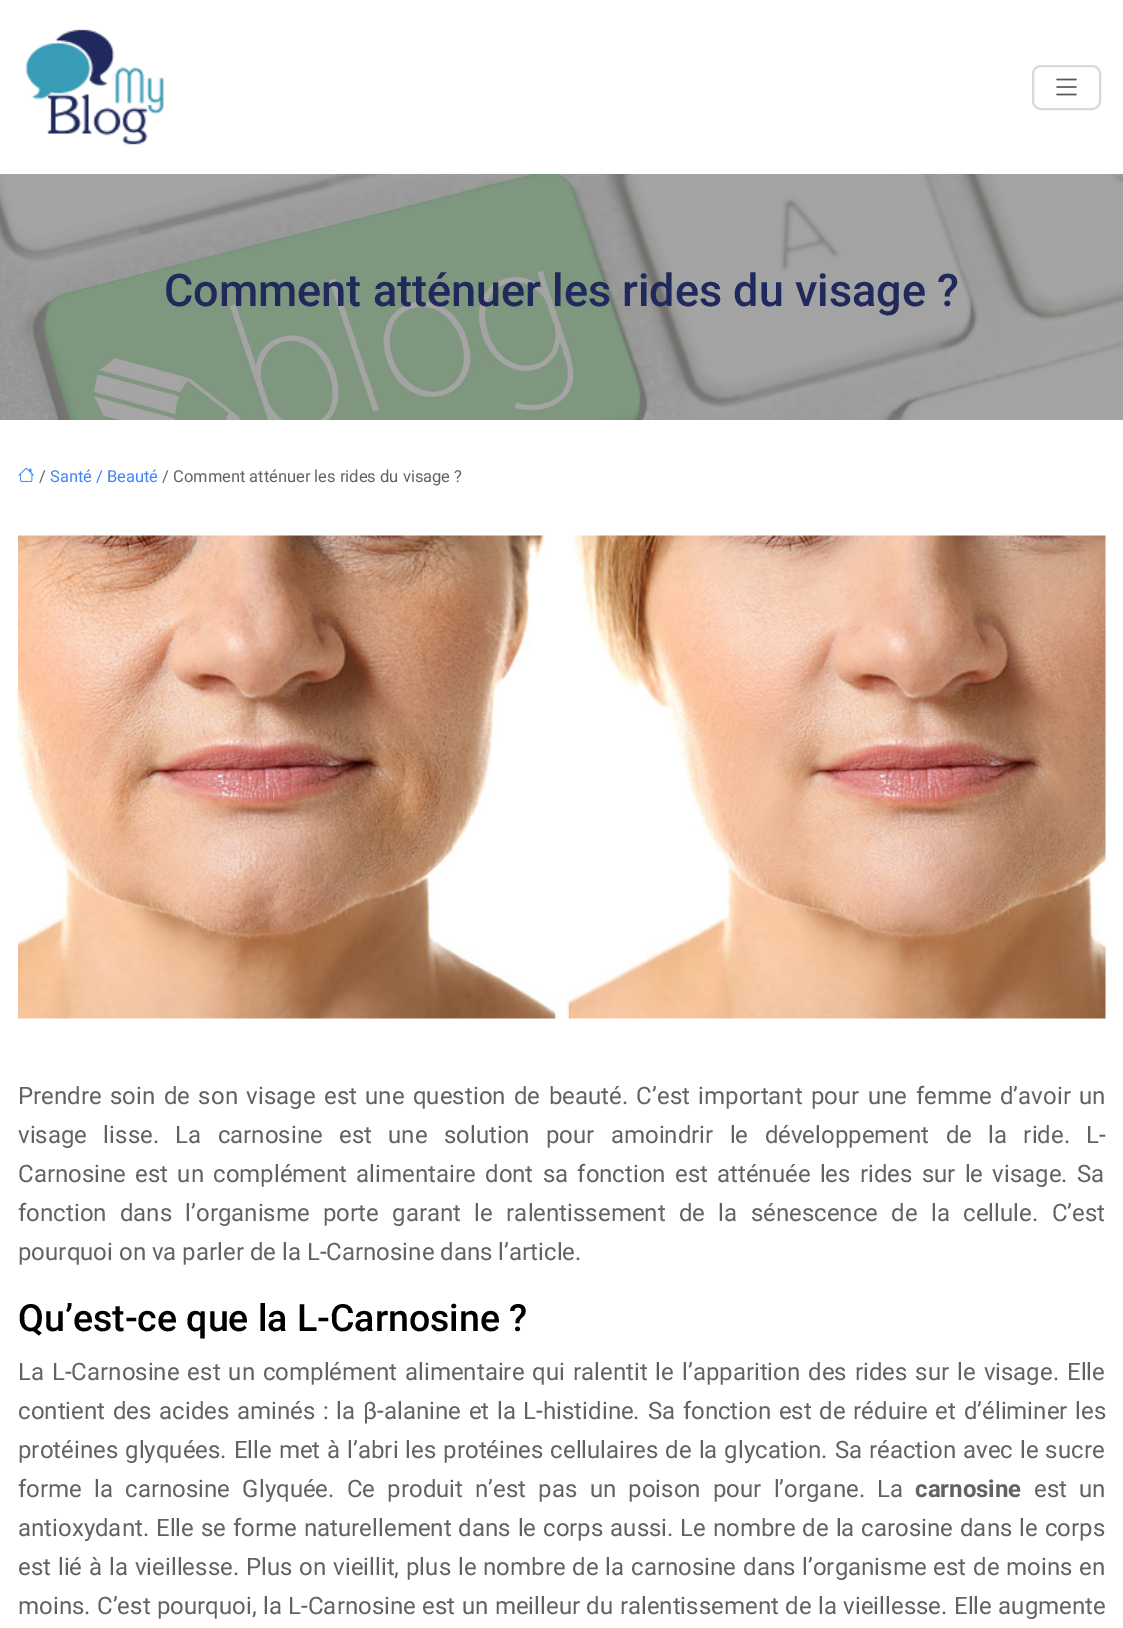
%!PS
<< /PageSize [1123 1628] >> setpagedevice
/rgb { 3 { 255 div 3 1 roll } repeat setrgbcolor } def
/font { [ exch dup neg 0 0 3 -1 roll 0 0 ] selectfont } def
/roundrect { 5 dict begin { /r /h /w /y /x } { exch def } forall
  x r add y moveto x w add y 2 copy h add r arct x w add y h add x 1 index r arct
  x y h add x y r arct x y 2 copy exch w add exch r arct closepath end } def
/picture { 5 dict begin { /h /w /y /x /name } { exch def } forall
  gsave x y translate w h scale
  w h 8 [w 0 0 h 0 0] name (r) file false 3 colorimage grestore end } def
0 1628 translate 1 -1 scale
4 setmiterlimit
255 255 255 rgb
0 0 1123 1628 rectfill
(img/1.rgb) 25 29 139 116 picture
217 217 217 rgb
2 setlinewidth
1033 66 67 43 8 roundrect stroke
(img/2.rgb) 1056 78 21 18 picture
(img/3.rgb) 0 174 1123 246 picture
(img/4.rgb) 18 467 16 15 picture
(img/5.rgb) 18 535 1088 484 picture
/Roboto-Medium 45 font
32 41 91 rgb
164 306 moveto (Comment atténuer les rides du visage ?) show
/Roboto-Regular 16.5 font
98 98 98 rgb
39 482 moveto (/) show
66 133 244 rgb
50 482 moveto (Santé / Beauté) show
98 98 98 rgb
162 482 moveto (/ Comment atténuer les rides du visage ?) show
/Roboto-Regular 24 font
18 1104 moveto 2.5 0 32 (Prendre soin de son visage est une question de beauté. C’est important pour une femme d’avoir un) widthshow
18 1143 moveto 10.4 0 32 (visage lisse. La carnosine est une solution pour amoindrir le développement de la ride. L-) widthshow
18 1182 moveto 3.25 0 32 (Carnosine est un complément alimentaire dont sa fonction est atténuée les rides sur le visage. Sa) widthshow
18 1221 moveto 7.4 0 32 (fonction dans l’organisme porte garant le ralentissement de la sénescence de la cellule. C’est) widthshow
18 1260 moveto (pourquoi on va parler de la L-Carnosine dans l’article.) show
/Roboto-Medium 37.5 font
0 0 0 rgb
18 1331 moveto (Qu’est-ce que la L-Carnosine ?) show
/Roboto-Regular 24 font
98 98 98 rgb
18 1380 moveto 2 0 32 (La L-Carnosine est un complément alimentaire qui ralentit le l’apparition des rides sur le visage. Elle) widthshow
18 1419 moveto 1.75 0 32 (contient des acides aminés : la β-alanine et la L-histidine. Sa fonction est de réduire et d’éliminer les) widthshow
18 1458 moveto 1 0 32 (protéines glyquées. Elle met à l’abri les protéines cellulaires de la glycation. Sa réaction avec le sucre) widthshow
18 1497 moveto 6.25 0 32 (forme la carnosine Glyquée. Ce produit n’est pas un poison pour l’organe. La) widthshow
/Roboto-Bold 24 font
915 1497 moveto (carnosine) show
/Roboto-Regular 24 font
1034 1497 moveto 6.25 0 32 (est un) widthshow
18 1536 moveto 1 0 32 (antioxydant. Elle se forme naturellement dans le corps aussi. Le nombre de la carosine dans le corps) widthshow
18 1575 moveto 0.9 0 32 (est lié à la vieillesse. Plus on vieillit, plus le nombre de la carnosine dans l’organisme est de moins en) widthshow
18 1614 moveto 0.5 0 32 (moins. C’est pourquoi, la L-Carnosine est un meilleur du ralentissement de la vieillesse. Elle augmente) widthshow
showpage
